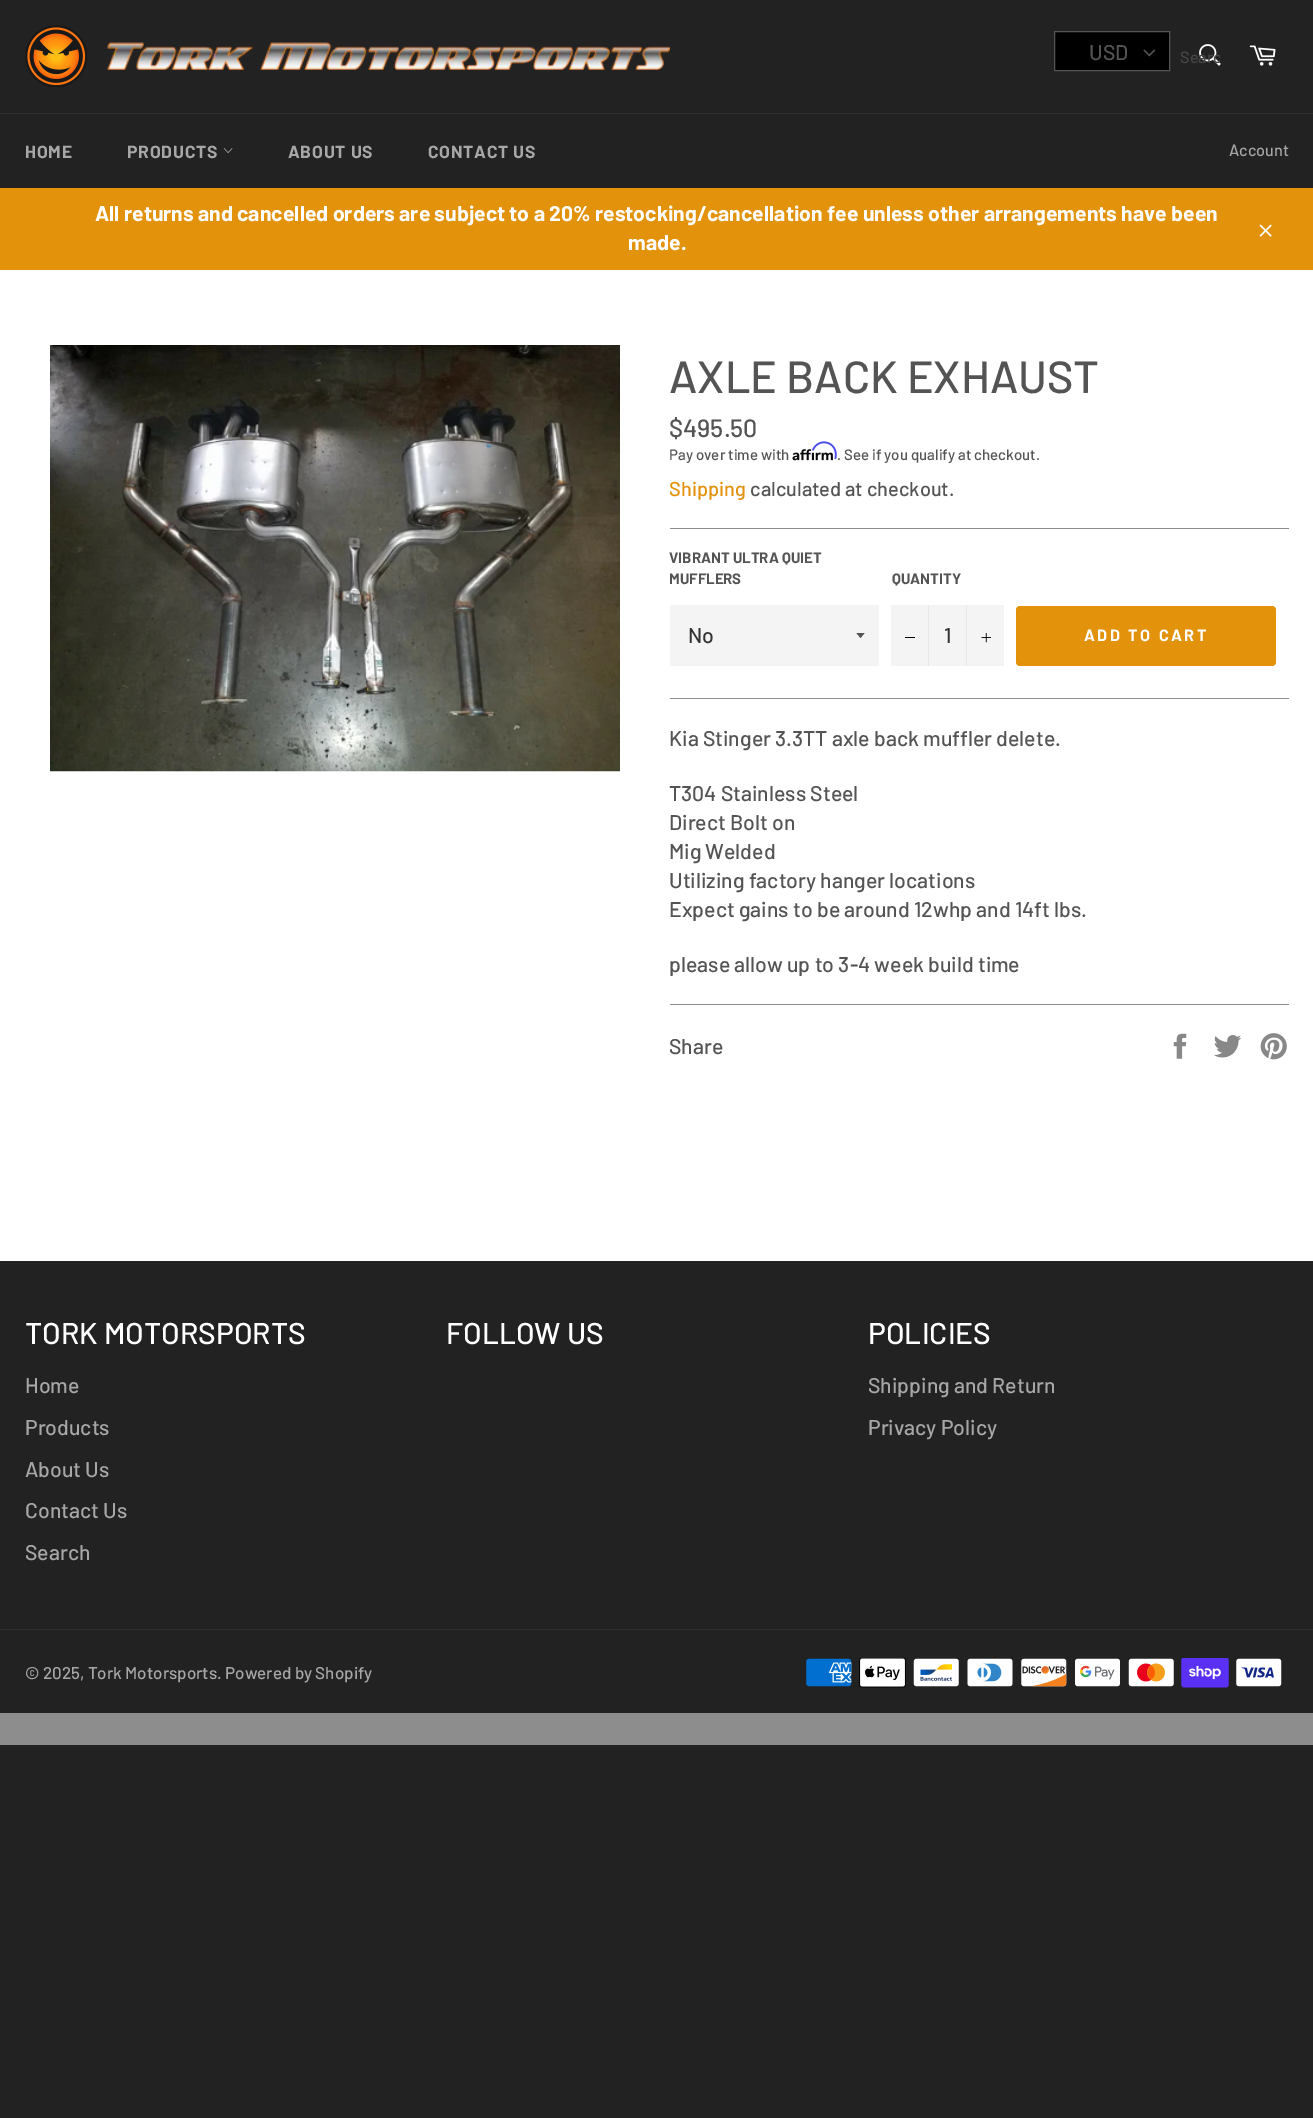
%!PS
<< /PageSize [1313 2118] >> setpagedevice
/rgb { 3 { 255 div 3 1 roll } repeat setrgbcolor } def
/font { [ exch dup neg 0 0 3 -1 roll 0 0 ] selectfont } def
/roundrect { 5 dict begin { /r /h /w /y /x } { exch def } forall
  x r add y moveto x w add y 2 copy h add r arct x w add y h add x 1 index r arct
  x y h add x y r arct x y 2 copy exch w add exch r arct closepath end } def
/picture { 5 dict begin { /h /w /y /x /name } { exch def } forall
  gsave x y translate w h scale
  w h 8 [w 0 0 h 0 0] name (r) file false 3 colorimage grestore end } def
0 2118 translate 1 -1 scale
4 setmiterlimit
34 34 34 rgb
0 0 1313 2118 rectfill
141 141 141 rgb
0 1713 1313 32 rectfill
(img/1.rgb) 25 25 63 63 picture
(img/2.rgb) 107 42 563 28 picture
0 0 0 rgb
1054.5 31.5 moveto 1169.5 31.5 lineto 1169.5 70.5 lineto 1054.5 70.5 lineto closepath gsave fill grestore
84 84 84 rgb
stroke
(img/3.rgb) 1143 49 13 8 picture
(img/4.rgb) 1199 44 22 22 picture
(img/5.rgb) 1249 45 27 21 picture
47 47 47 rgb
0 113 1313 1 rectfill
(img/6.rgb) 223 148 10 6 picture
227 146 12 rgb
0 188 1313 82 rectfill
(img/7.rgb) 1259 224 13 13 picture
255 255 255 rgb
0 270 1313 991 rectfill
(img/8.rgb) 50 345 570 427 picture
(img/10.rgb) 792 449 41 12 picture
(img/9.rgb) 812 441 25 18 picture
141 141 141 rgb
670 528 619 1 rectfill
244 244 244 rgb
670 605 209 61 rectfill
gsave
856 633 10 6 rectclip
84 84 84 rgb
856 632.5 moveto 860.5 638 lineto 865 632.5 lineto closepath fill
grestore
[
  [891 605 113 61 244 244 244]
  [928 605 1 61 231 231 231]
  [905 637 10 1 0 0 0]
  [966 605 1 61 231 231 231]
] { aload pop rgb rectfill } forall
(img/11.rgb) 981 633 10 10 picture
227 146 12 rgb
1016 606 260 60 4 roundrect fill
141 141 141 rgb
670 698 619 1 rectfill
670 1004 619 1 rectfill
(img/12.rgb) 1173 1033 14 26 picture
(img/13.rgb) 1214 1035 28 23 picture
(img/14.rgb) 1260 1033 27 27 picture
47 47 47 rgb
0 1629 1313 1 rectfill
(img/15.rgb) 806 1658 46 29 picture
(img/16.rgb) 859 1658 47 30 picture
(img/17.rgb) 913 1658 46 29 picture
(img/18.rgb) 967 1658 46 29 picture
(img/19.rgb) 1021 1658 46 29 picture
(img/20.rgb) 1075 1658 45 29 picture
(img/21.rgb) 1128 1658 46 29 picture
(img/22.rgb) 1181 1658 48 30 picture
(img/23.rgb) 1236 1658 46 29 picture
/Barlow-Medium 21.25 font
84 84 84 rgb
1089 60 moveto (USD) show
gsave
1180 46 40 20 rectclip
/Barlow-Medium 16.25 font
70 70 70 rgb
1180 63 moveto (Searc) show
grestore
/Barlow-Bold 17.5 font
167 167 167 rgb
25 158 moveto 0.75 0 (HOME) ashow
127 158 moveto 0.75 0 (PRODUCTS) ashow
288 158 moveto 0.75 0 (ABOUT US) ashow
428 158 moveto 0.75 0 (CONTACT US) ashow
/Barlow-Medium 16.25 font
1229 156 moveto (Account) show
/Barlow-Bold 21.25 font
255 255 255 rgb
95 221 moveto (All returns and cancelled orders are subject to a 20% restocking/cancellation fee unless other arrangements have been) show
628 250 moveto (made.) show
/Barlow-Medium 45 font
84 84 84 rgb
669 393 moveto (AXLE BACK EXHAUST) show
/Barlow-Medium 25 font
669 437 moveto ($495.50) show
/Barlow-Medium 15 font
669 460 moveto (Pay over time with) show
837 460 moveto (. See if you qualify at checkout.) show
/Barlow-Medium 20 font
227 146 12 rgb
669 496 moveto (Shipping) show
84 84 84 rgb
750 496 moveto (calculated at checkout.) show
/Barlow-Bold 15 font
669 563 moveto (VIBRANT ULTRA QUIET) show
669 584 moveto (MUFFLERS) show
/Barlow-Medium 21.25 font
51 51 51 rgb
688 643 moveto (No) show
/Barlow-Bold 15 font
84 84 84 rgb
892 584 moveto (QUANTITY) show
/Barlow-Medium 21.25 font
51 51 51 rgb
944 643 moveto (1) show
/Barlow-Bold 16.25 font
255 255 255 rgb
1084 641 moveto 2.5 0 (ADD TO CART) ashow
/Barlow-Medium 21.25 font
84 84 84 rgb
[
  [(Kia Stinger 3.3TT axle back muffler delete.) 669 746]
  [(T304 Stainless Steel) 669 801]
  [(Direct Bolt on) 669 830]
  [(Mig Welded) 669 859]
  [(Utilizing factory hanger locations) 669 888]
  [(Expect gains to be around 12whp and 14ft lbs.) 669 917]
  [(please allow up to 3-4 week build time) 669 972]
  [(Share) 669 1054]
] { aload pop moveto show } forall
/Barlow-Medium 30 font
255 255 255 rgb
25 1344 moveto (TORK MOTORSPORTS) show
/Barlow-Medium 21.25 font
167 167 167 rgb
[
  [(Home) 25 1393]
  [(Products) 25 1435]
  [(About Us) 25 1477]
  [(Contact Us) 25 1518]
  [(Search) 25 1560]
] { aload pop moveto show } forall
/Barlow-Medium 30 font
255 255 255 rgb
446 1344 moveto (FOLLOW US) show
868 1344 moveto (POLICIES) show
/Barlow-Medium 21.25 font
167 167 167 rgb
868 1393 moveto (Shipping and Return) show
868 1435 moveto (Privacy Policy) show
/Barlow-Medium 17 font
25 1679 moveto (© 2025, Tork Motorsports. Powered by Shopify) show
showpage
